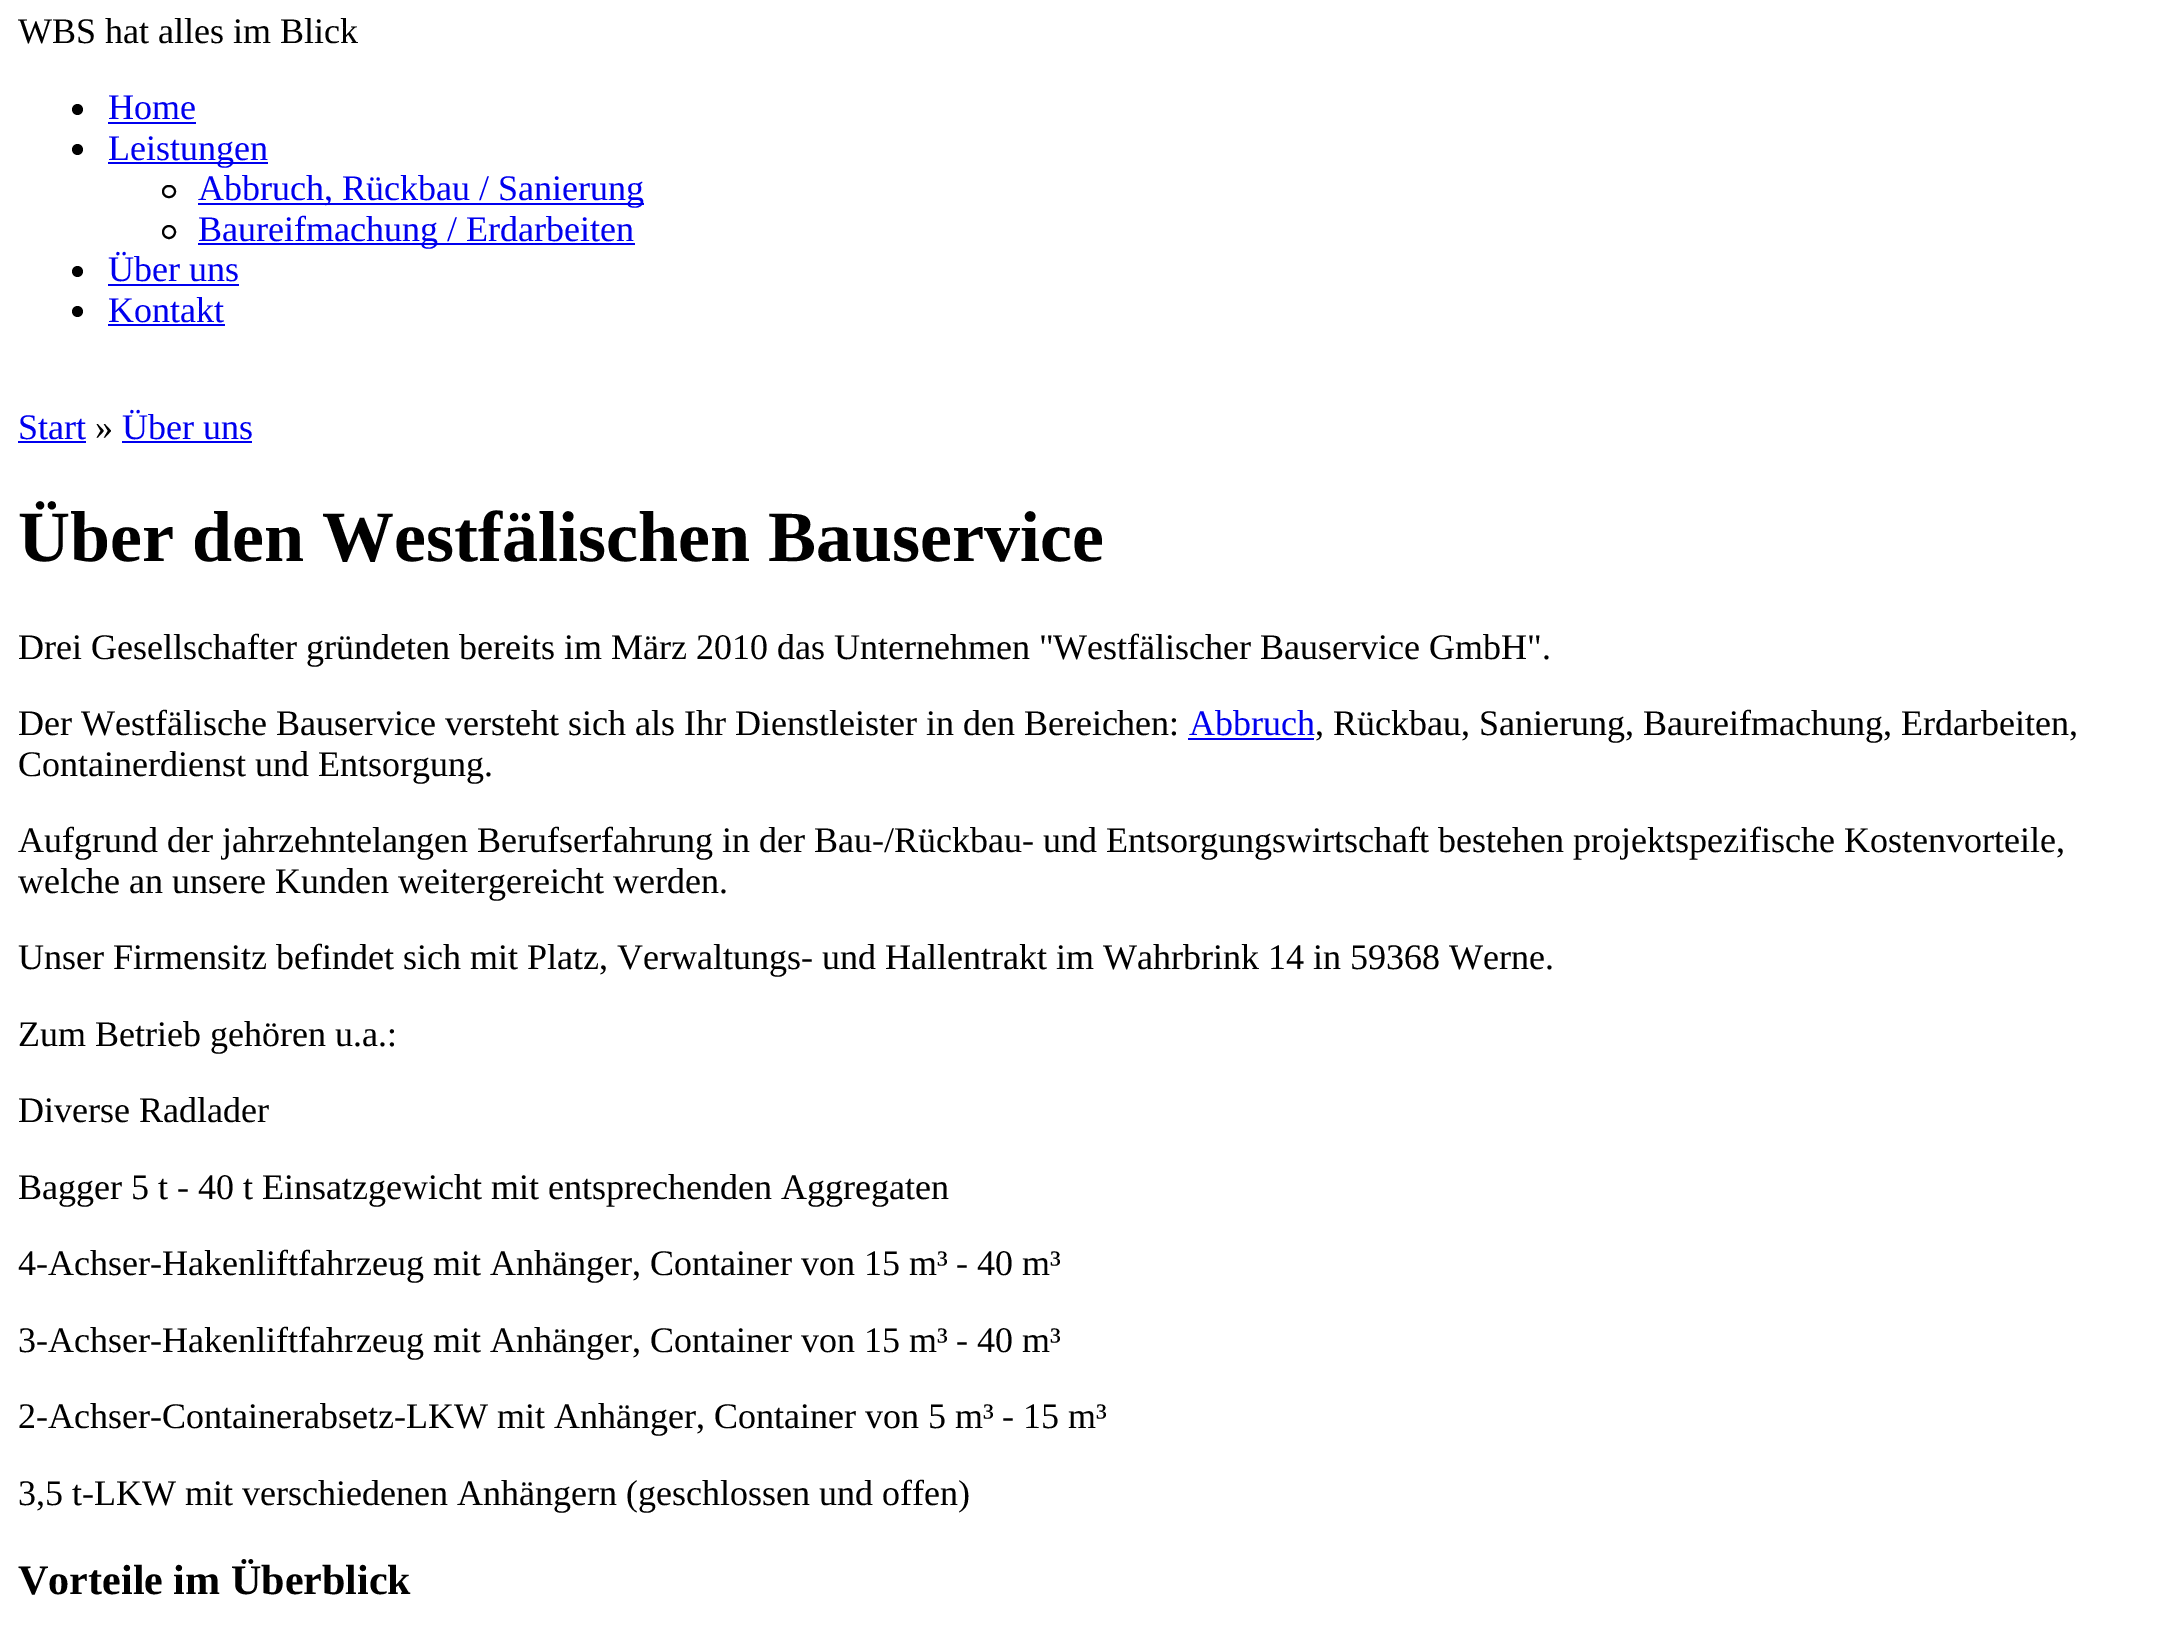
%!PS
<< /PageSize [2164 1638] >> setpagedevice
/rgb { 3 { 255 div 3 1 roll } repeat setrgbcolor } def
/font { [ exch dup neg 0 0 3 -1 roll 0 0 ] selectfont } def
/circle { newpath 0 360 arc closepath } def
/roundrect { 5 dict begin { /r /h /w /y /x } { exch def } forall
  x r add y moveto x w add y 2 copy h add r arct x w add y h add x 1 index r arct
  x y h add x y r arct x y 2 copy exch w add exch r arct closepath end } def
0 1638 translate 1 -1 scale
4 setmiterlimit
255 255 255 rgb
0 0 2164 1638 rectfill
0 0 0 rgb
77.5 109.5 5.5 circle fill
0 0 238 rgb
108 122 88 2 rectfill
0 0 0 rgb
77.5 149.5 5.5 circle fill
0 0 238 rgb
108 162 160 2 rectfill
0 0 0 rgb
2 setlinewidth
163 186 12 11 5.5 roundrect stroke
0 0 238 rgb
198 203 446 2 rectfill
0 0 0 rgb
169 232 6 circle stroke
0 0 238 rgb
198 243 437 2 rectfill
0 0 0 rgb
77.5 271.5 5.5 circle fill
0 0 238 rgb
108 284 131 2 rectfill
0 0 0 rgb
77.5 311.5 5.5 circle fill
[
  [108 324 117 2 0 0 238]
  [18 441 68 2 0 0 238]
  [122 441 130 2 0 0 238]
  [1188 738 126 2 0 0 238]
] { aload pop rgb rectfill } forall
/LiberationSerif-Regular 36 font
0 0 0 rgb
18 43 moveto (WBS hat alles im Blick) show
0 0 238 rgb
[
  [(Home) 108 119]
  [(Leistungen) 108 160]
  [(Abbruch, Rückbau / Sanierung) 198 200]
  [(Baureifmachung / Erdarbeiten) 198 241]
  [(Über uns) 108 281]
  [(Kontakt) 108 322]
  [(Start) 18 439]
] { aload pop moveto show } forall
0 0 0 rgb
95 439 moveto (») show
0 0 238 rgb
122 439 moveto (Über uns) show
/LiberationSerif-Bold 72 font
0 0 0 rgb
18 561 moveto (Über den Westfälischen Bauservice) show
/LiberationSerif-Regular 36 font
18 659 moveto (Drei Gesellschafter gründeten bereits im März 2010 das Unternehmen "Westfälischer Bauservice GmbH".) show
18 735 moveto (Der Westfälische Bauservice versteht sich als Ihr Dienstleister in den Bereichen:) show
0 0 238 rgb
1189 735 moveto (Abbruch) show
0 0 0 rgb
[
  [(, Rückbau, Sanierung, Baureifmachung, Erdarbeiten,) 1315 735]
  [(Containerdienst und Entsorgung.) 18 776]
  [(Aufgrund der jahrzehntelangen Berufserfahrung in der Bau-/Rückbau- und Entsorgungswirtschaft bestehen projektspezifische Kostenvorteile,) 18 852]
  [(welche an unsere Kunden weitergereicht werden.) 18 893]
  [(Unser Firmensitz befindet sich mit Platz, Verwaltungs- und Hallentrakt im Wahrbrink 14 in 59368 Werne.) 18 969]
  [(Zum Betrieb gehören u.a.:) 18 1046]
  [(Diverse Radlader) 18 1122]
  [(Bagger 5 t - 40 t Einsatzgewicht mit entsprechenden Aggregaten) 18 1199]
  [(4-Achser-Hakenliftfahrzeug mit Anhänger, Container von 15 m³ - 40 m³) 18 1275]
  [(3-Achser-Hakenliftfahrzeug mit Anhänger, Container von 15 m³ - 40 m³) 18 1352]
  [(2-Achser-Containerabsetz-LKW mit Anhänger, Container von 5 m³ - 15 m³) 18 1428]
  [(3,5 t-LKW mit verschiedenen Anhängern \(geschlossen und offen\)) 18 1505]
] { aload pop moveto show } forall
/LiberationSerif-Bold 42.1 font
18 1594 moveto (Vorteile im Überblick) show
showpage
